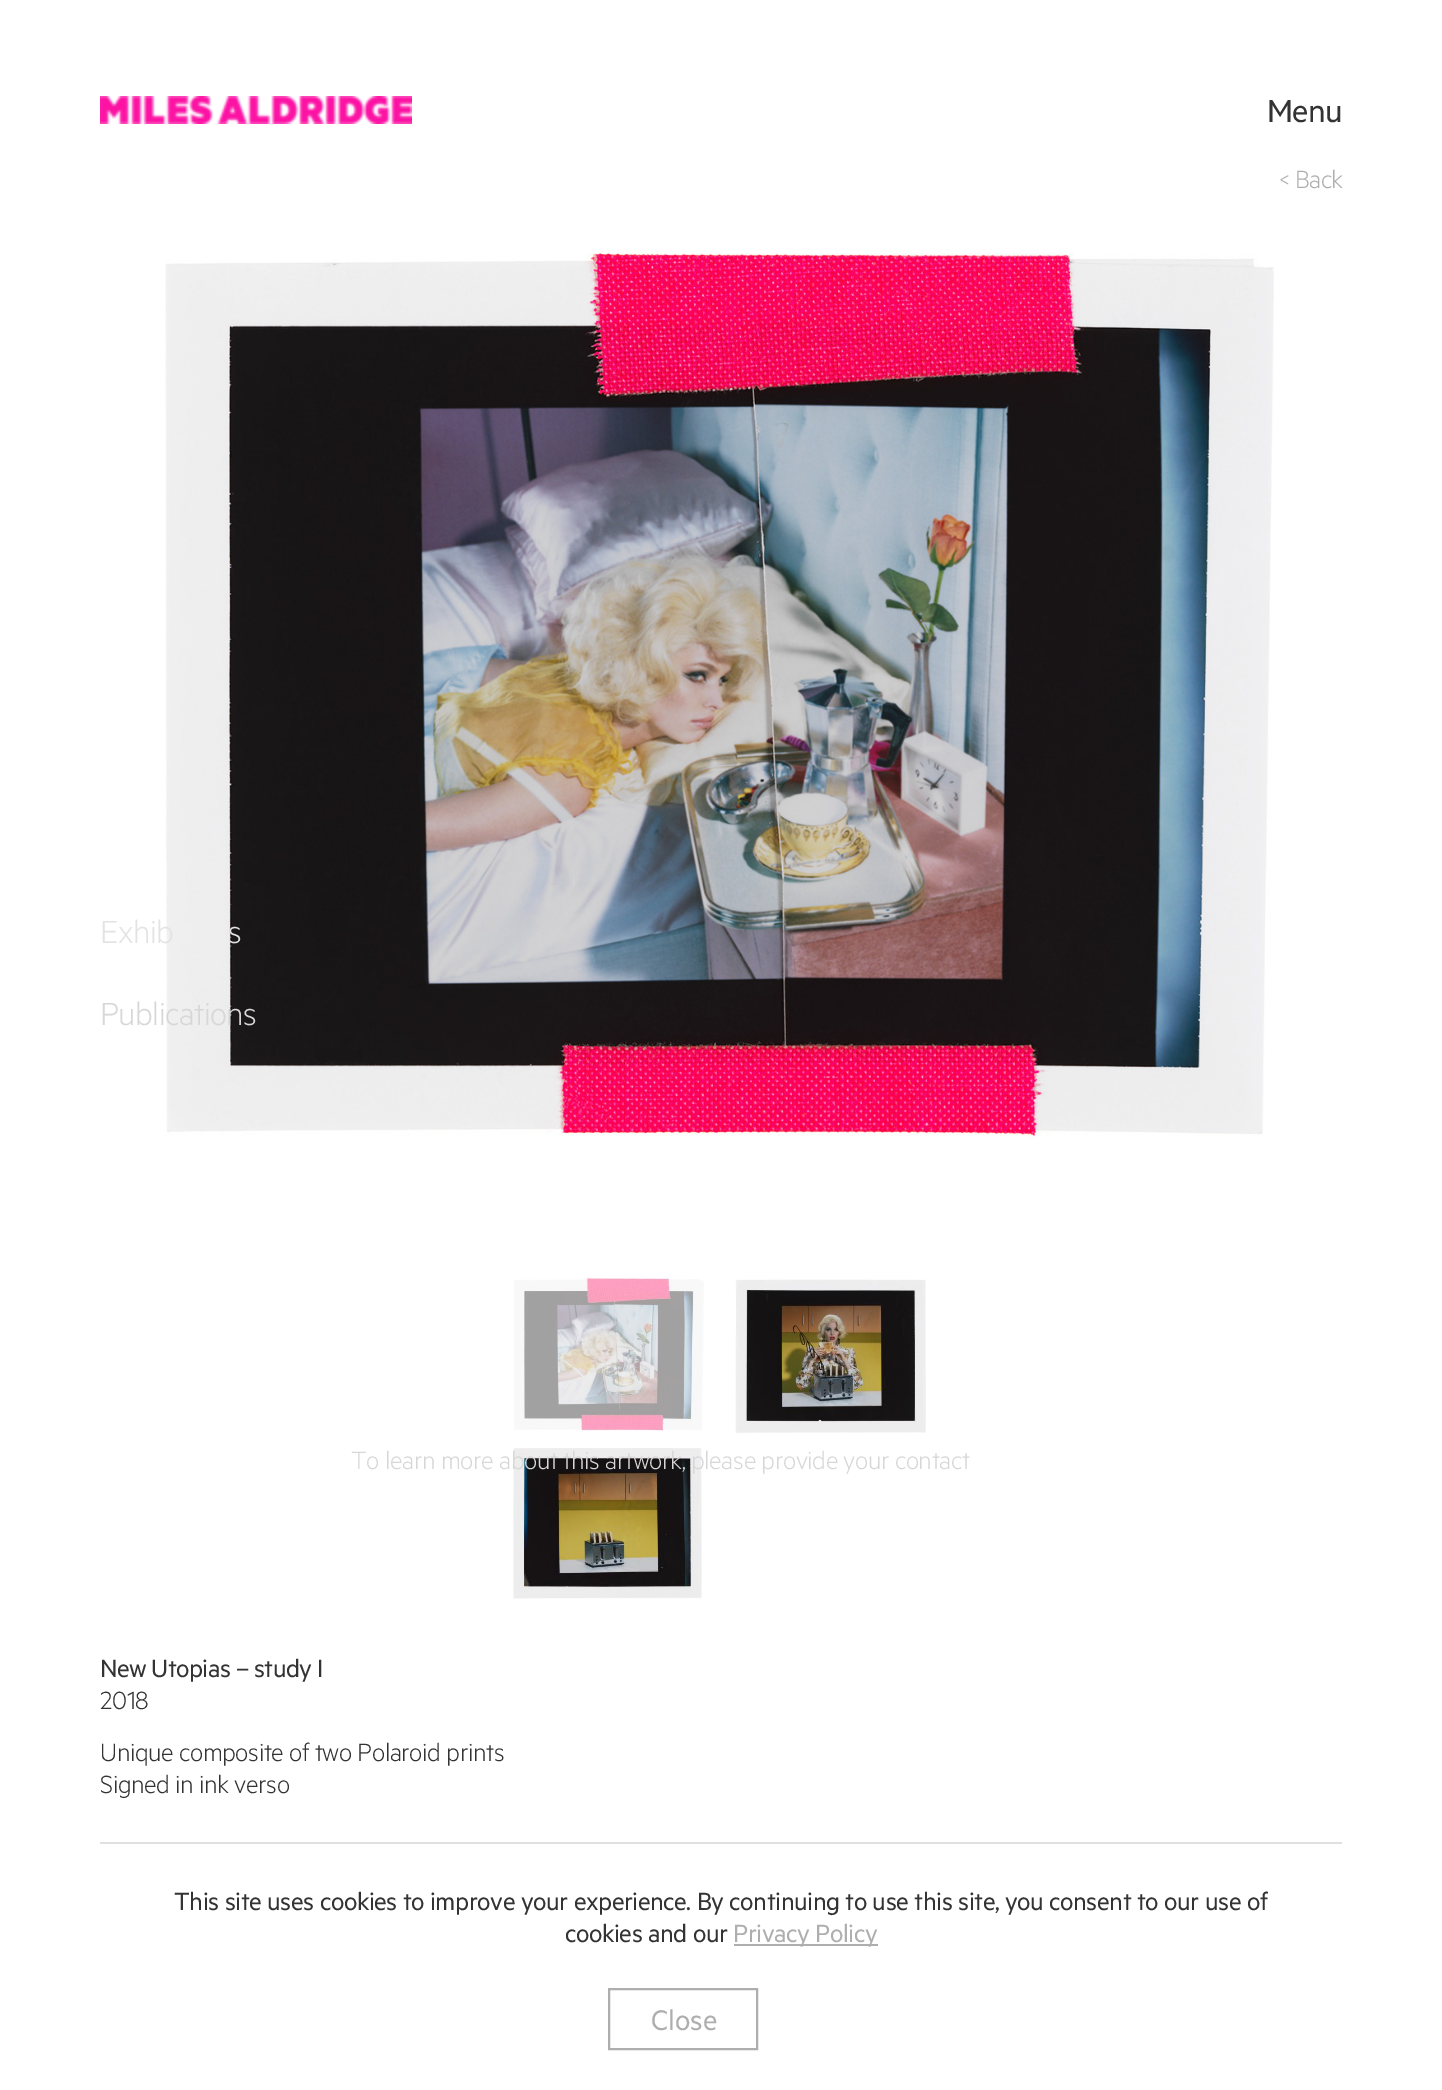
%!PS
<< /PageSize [1442 2090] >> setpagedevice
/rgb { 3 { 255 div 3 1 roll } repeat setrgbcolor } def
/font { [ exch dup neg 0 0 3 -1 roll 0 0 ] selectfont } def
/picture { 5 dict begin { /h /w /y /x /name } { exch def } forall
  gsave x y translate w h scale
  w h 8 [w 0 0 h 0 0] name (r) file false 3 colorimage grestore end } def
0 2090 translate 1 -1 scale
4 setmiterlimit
255 255 255 rgb
0 0 1442 2090 rectfill
(img/1.rgb) 100 96 312 28 picture
(img/2.rgb) 165 253 1109 887 picture
(img/3.rgb) 514 1276 190 155 picture
(img/4.rgb) 735 1279 191 154 picture
(img/5.rgb) 513 1448 189 151 picture
224 224 224 rgb
100 1842 1242 2 rectfill
174 174 174 rgb
734 1944 144 2 rectfill
2 setlinewidth
609 1989 148 60 rectstroke
/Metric-Regular 36 font
51 51 51 rgb
1267 122 moveto -0.6 0 (Menu) ashow
/Metric-Light 28 font
174 174 174 rgb
1279 188 moveto -0.6 0 (< Back) ashow
/Metric-Light 36 font
228 227 227 rgb
100 943 moveto -0.6 0 (Exhib) ashow
228 943 moveto -0.6 0 (s) ashow
215 215 215 rgb
100 1025 moveto -0.6 0 (Publications) ashow
/Metric-Regular 28 font
51 51 51 rgb
100 1677 moveto -0.6 0 (New Utopias – study I) ashow
/Metric-Light 28 font
100 1709 moveto -0.4 0 (2018) ashow
100 1761 moveto -0.4 0 (Unique composite of two Polaroid prints) ashow
100 1793 moveto -0.4 0 (Signed in ink verso) ashow
215 215 215 rgb
351 1469 moveto -0.4 0 (To learn more about this artwork, please provide your contact) ashow
/Metric-Regular 28 font
51 51 51 rgb
174 1910 moveto -0.4 0 (This site uses cookies to improve your experience. By continuing to use this site, you consent to our use of) ashow
565 1942 moveto -0.4 0 (cookies and our) ashow
174 174 174 rgb
733 1942 moveto -0.4 0 (Privacy Policy) ashow
/Metric-Regular 32 font
651 2030 moveto (Close) show
showpage
